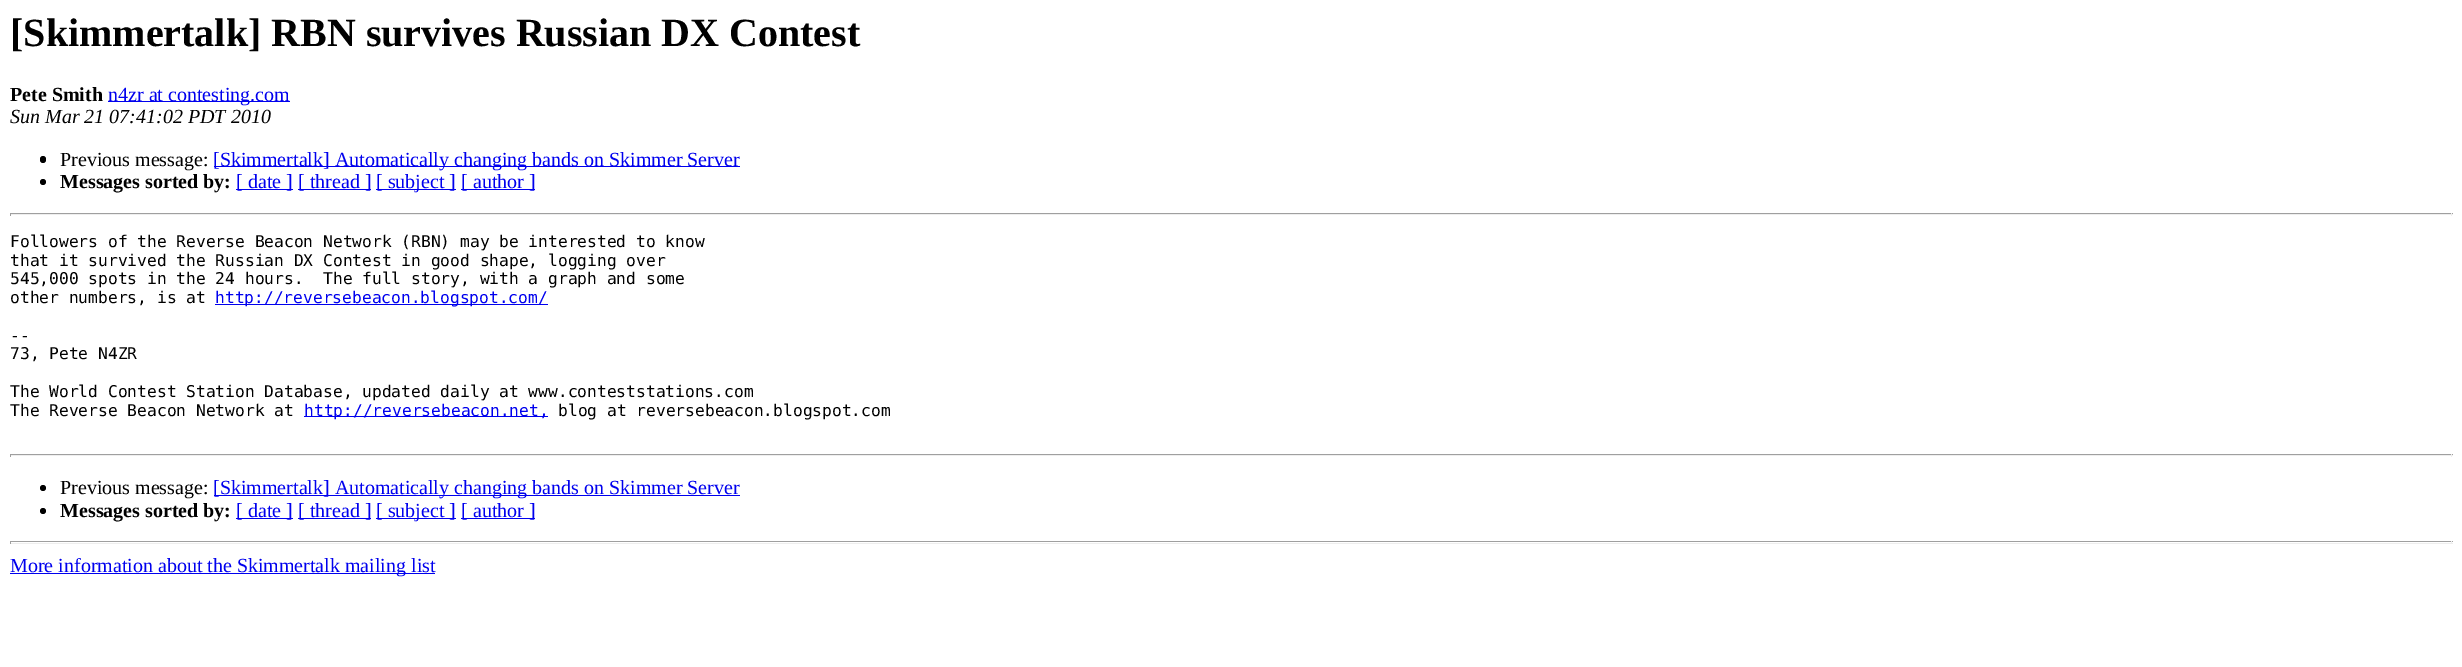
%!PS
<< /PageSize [2462 667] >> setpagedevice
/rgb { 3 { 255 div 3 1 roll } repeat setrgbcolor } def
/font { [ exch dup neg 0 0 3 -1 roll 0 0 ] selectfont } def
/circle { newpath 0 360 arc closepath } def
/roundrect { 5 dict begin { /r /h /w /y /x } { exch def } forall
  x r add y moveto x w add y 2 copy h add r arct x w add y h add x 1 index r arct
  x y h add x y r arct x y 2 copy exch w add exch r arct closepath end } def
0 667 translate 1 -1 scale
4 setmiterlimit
255 255 255 rgb
0 0 2462 667 rectfill
0 0 238 rgb
108 101 182 1 rectfill
0 0 0 rgb
40 156 6 7 3 roundrect fill
0 0 238 rgb
214 166 526 1 rectfill
0 0 0 rgb
43 182 3 circle fill
[
  [236 189 57 1 0 0 238]
  [298 189 73 1 0 0 238]
  [376 189 80 1 0 0 238]
  [461 189 74 1 0 0 238]
  [10 213 2443 1 159 159 159]
  [2451 213 1 3 238 238 238]
  [10 214 2443 1 238 238 238]
  [10 213 1 3 159 159 159]
  [215 304 333 1 0 0 238]
  [304 416 244 1 0 0 238]
  [10 454 2443 1 159 159 159]
  [2451 454 1 3 238 238 238]
  [10 455 2443 1 238 238 238]
  [10 454 1 3 159 159 159]
] { aload pop rgb rectfill } forall
0 0 0 rgb
43 488 3 circle fill
0 0 238 rgb
214 495 526 1 rectfill
0 0 0 rgb
43 511 3 circle fill
[
  [236 518 57 1 0 0 238]
  [298 518 73 1 0 0 238]
  [376 518 80 1 0 0 238]
  [461 518 74 1 0 0 238]
  [10 541 2443 1 159 159 159]
  [2451 541 1 3 238 238 238]
  [10 543 2443 1 238 238 238]
  [10 541 1 3 159 159 159]
  [10 573 425 1 0 0 238]
] { aload pop rgb rectfill } forall
/LiberationSerif-Bold 40 font
0 0 0 rgb
10 46 moveto ([Skimmertalk] RBN survives Russian DX Contest) show
/LiberationSerif-Bold 20 font
10 101 moveto (Pete Smith) show
/LiberationSerif-Regular 20 font
0 0 238 rgb
108 101 moveto (n4zr at contesting.com) show
/LiberationSerif-Italic 20 font
0 0 0 rgb
10 123 moveto (Sun Mar 21 07:41:02 PDT 2010) show
/LiberationSerif-Regular 20 font
60 166 moveto (Previous message:) show
0 0 238 rgb
213 166 moveto ([Skimmertalk] Automatically changing bands on Skimmer Server) show
/LiberationSerif-Bold 20 font
0 0 0 rgb
60 188 moveto (Messages sorted by:) show
/LiberationSerif-Regular 20 font
0 0 238 rgb
[
  [([ date ]) 236 188]
  [([ thread ]) 298 188]
  [([ subject ]) 376 188]
  [([ author ]) 461 188]
] { aload pop moveto show } forall
/DejaVuSansMono-Regular 16.25 font
0 0 0 rgb
[
  [(Followers of the Reverse Beacon Network \(RBN\) may be interested to know) 10 247]
  [(that it survived the Russian DX Contest in good shape, logging over) 10 266]
  [(545,000 spots in the 24 hours.  The full story, with a graph and some) 10 284]
  [(other numbers, is at) 10 303]
] { aload pop moveto show } forall
0 0 238 rgb
215 303 moveto (http://reversebeacon.blogspot.com/) show
0 0 0 rgb
[
  [(--) 10 341]
  [(73, Pete N4ZR) 10 359]
  [(The World Contest Station Database, updated daily at www.conteststations.com) 10 397]
  [(The Reverse Beacon Network at) 10 416]
] { aload pop moveto show } forall
0 0 238 rgb
304 416 moveto (http://reversebeacon.net,) show
0 0 0 rgb
558 416 moveto (blog at reversebeacon.blogspot.com) show
/LiberationSerif-Regular 20 font
60 494 moveto (Previous message:) show
0 0 238 rgb
213 494 moveto ([Skimmertalk] Automatically changing bands on Skimmer Server) show
/LiberationSerif-Bold 20 font
0 0 0 rgb
60 517 moveto (Messages sorted by:) show
/LiberationSerif-Regular 20 font
0 0 238 rgb
[
  [([ date ]) 236 517]
  [([ thread ]) 298 517]
  [([ subject ]) 376 517]
  [([ author ]) 461 517]
  [(More information about the Skimmertalk mailing list) 10 572]
] { aload pop moveto show } forall
showpage
